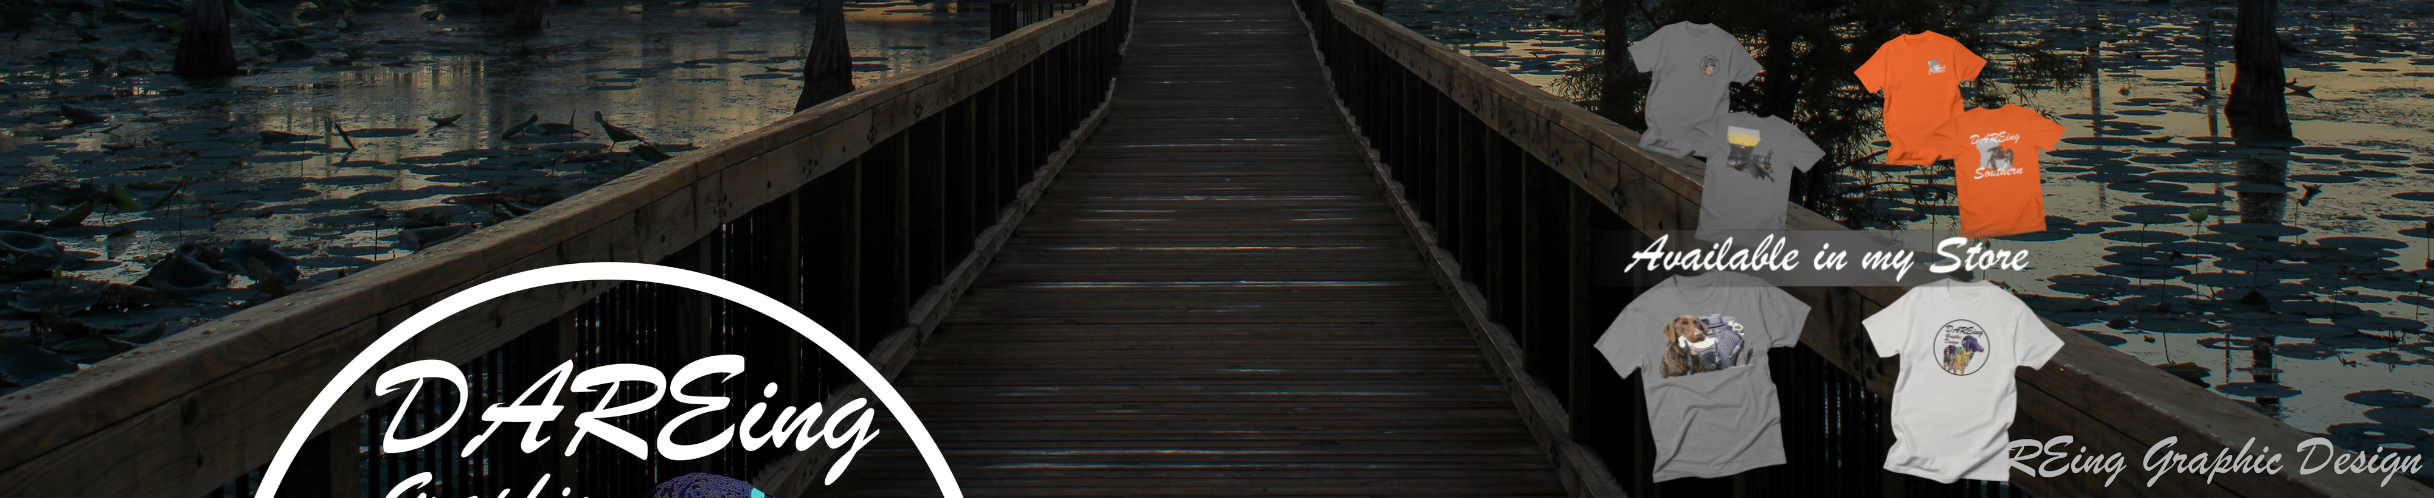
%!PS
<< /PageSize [2434 498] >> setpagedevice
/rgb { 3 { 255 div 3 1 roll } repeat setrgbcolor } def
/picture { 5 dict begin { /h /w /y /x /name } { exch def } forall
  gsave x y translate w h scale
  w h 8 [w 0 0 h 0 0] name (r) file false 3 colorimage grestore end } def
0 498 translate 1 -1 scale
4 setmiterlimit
255 255 255 rgb
0 0 2434 498 rectfill
(img/1.rgb) 0 0 2434 498 picture
(img/2.rgb) 254 262 710 236 picture
(img/3.rgb) 1592 20 475 464 picture
showpage
